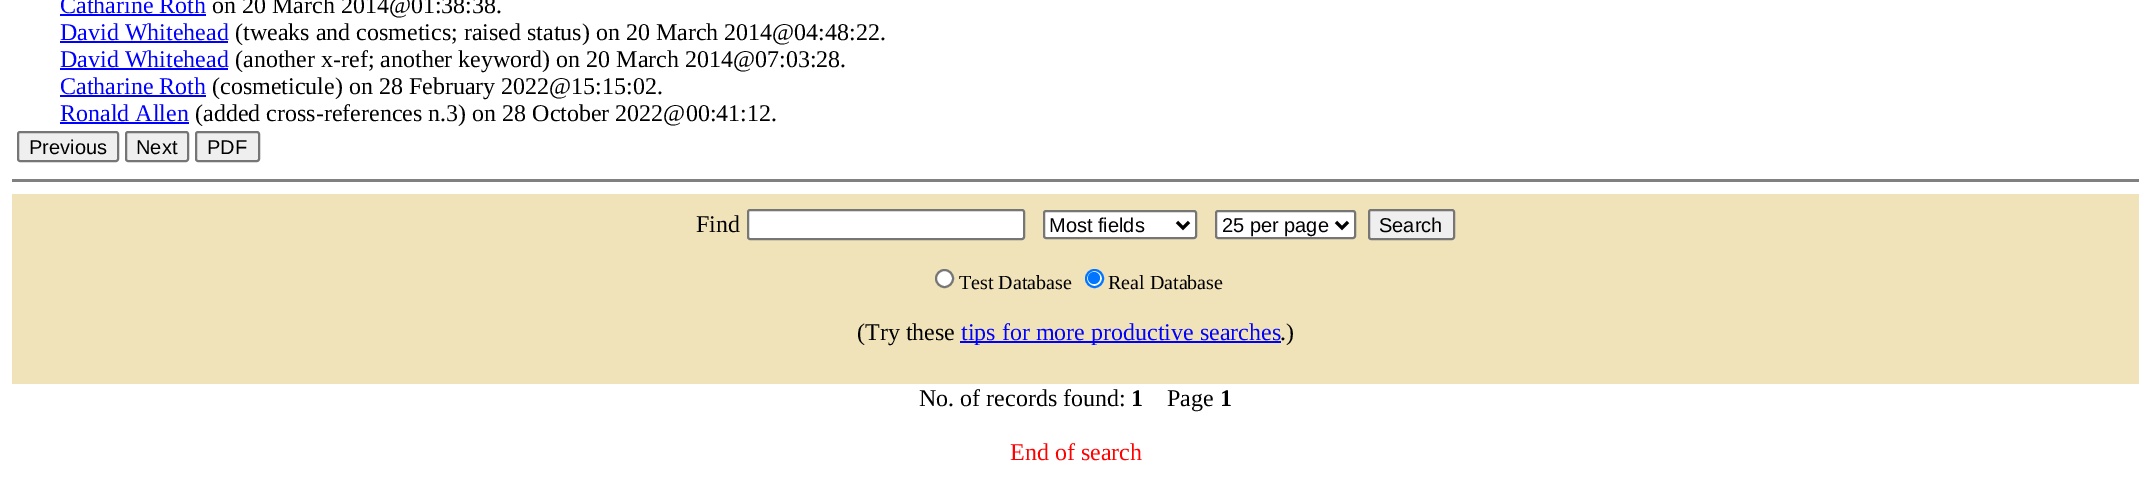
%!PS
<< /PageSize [2151 503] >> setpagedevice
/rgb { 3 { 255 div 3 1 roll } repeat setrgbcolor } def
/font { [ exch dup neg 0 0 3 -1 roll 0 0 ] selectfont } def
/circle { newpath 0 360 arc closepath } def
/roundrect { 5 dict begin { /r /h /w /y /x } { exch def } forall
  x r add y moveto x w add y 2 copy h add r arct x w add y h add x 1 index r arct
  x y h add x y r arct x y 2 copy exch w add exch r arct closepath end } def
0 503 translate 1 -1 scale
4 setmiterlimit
255 255 255 rgb
0 0 2151 503 rectfill
[
  [60 14 146 2 0 0 255]
  [60 41 168 2 0 0 255]
  [60 68 168 2 0 0 255]
  [60 95 146 2 0 0 255]
  [60 122 129 2 0 0 255]
] { aload pop rgb rectfill } forall
239 239 239 rgb
18 132 100 29 2 roundrect gsave fill grestore
118 118 118 rgb
2 setlinewidth
stroke
239 239 239 rgb
126 132 62 29 2 roundrect gsave fill grestore
118 118 118 rgb
stroke
239 239 239 rgb
196 132 63 29 2 roundrect gsave fill grestore
118 118 118 rgb
stroke
128 128 128 rgb
12 179 2127 3 rectfill
240 226 185 rgb
12 194 2127 190 rectfill
255 255 255 rgb
748 210 276 29 2 roundrect gsave fill grestore
118 118 118 rgb
stroke
255 255 255 rgb
1044 211 152 27 2 roundrect gsave fill grestore
118 118 118 rgb
stroke
0 0 0 rgb
3 setlinewidth
1177 222 moveto 1183 228 lineto 1189 222 lineto stroke
255 255 255 rgb
1216 211 139 27 2 roundrect gsave fill grestore
118 118 118 rgb
2 setlinewidth
stroke
0 0 0 rgb
3 setlinewidth
1336 222 moveto 1342 228 lineto 1348 222 lineto stroke
239 239 239 rgb
1369 210 85 29 2 roundrect gsave fill grestore
118 118 118 rgb
2 setlinewidth
stroke
255 255 255 rgb
944.5 278.5 8.5 circle gsave fill grestore
118 118 118 rgb
stroke
255 255 255 rgb
1094.5 278.5 8.5 circle gsave fill grestore
0 117 255 rgb
stroke
1094 278 6 circle fill
0 0 255 rgb
960 341 321 2 rectfill
/LiberationSerif-Regular 24 font
60 13 moveto (Catharine Roth) show
0 0 0 rgb
212 13 moveto (on 20 March 2014@01:38:38.) show
0 0 255 rgb
60 40 moveto (David Whitehead) show
0 0 0 rgb
235 40 moveto (\(tweaks and cosmetics; raised status\) on 20 March 2014@04:48:22.) show
0 0 255 rgb
60 67 moveto (David Whitehead) show
0 0 0 rgb
235 67 moveto (\(another x-ref; another keyword\) on 20 March 2014@07:03:28.) show
0 0 255 rgb
60 94 moveto (Catharine Roth) show
0 0 0 rgb
212 94 moveto (\(cosmeticule\) on 28 February 2022@15:15:02.) show
0 0 255 rgb
60 121 moveto (Ronald Allen) show
0 0 0 rgb
195 121 moveto (\(added cross-references n.3\) on 28 October 2022@00:41:12.) show
/LiberationSans-Regular 20 font
[
  [(Previous) 29 154]
  [(Next) 136 154]
  [(PDF) 207 154]
] { aload pop moveto show } forall
/LiberationSerif-Regular 24 font
696 232 moveto (Find) show
/LiberationSans-Regular 20 font
[
  [(Most fields) 1049 232]
  [(25 per page) 1222 232]
  [(Search) 1379 232]
] { aload pop moveto show } forall
/LiberationSerif-Regular 20 font
959 289 moveto (Test Database) show
1108 289 moveto (Real Database) show
/LiberationSerif-Regular 24 font
857 340 moveto (\(Try these) show
0 0 255 rgb
961 340 moveto (tips for more productive searches) show
0 0 0 rgb
1280 340 moveto (.\)) show
919 406 moveto (No. of records found:) show
/LiberationSerif-Bold 24 font
1131 406 moveto (1) show
/LiberationSerif-Regular 24 font
1167 406 moveto (Page) show
/LiberationSerif-Bold 24 font
1220 406 moveto (1) show
/LiberationSerif-Regular 24 font
255 0 0 rgb
1010 460 moveto (End of search) show
showpage
